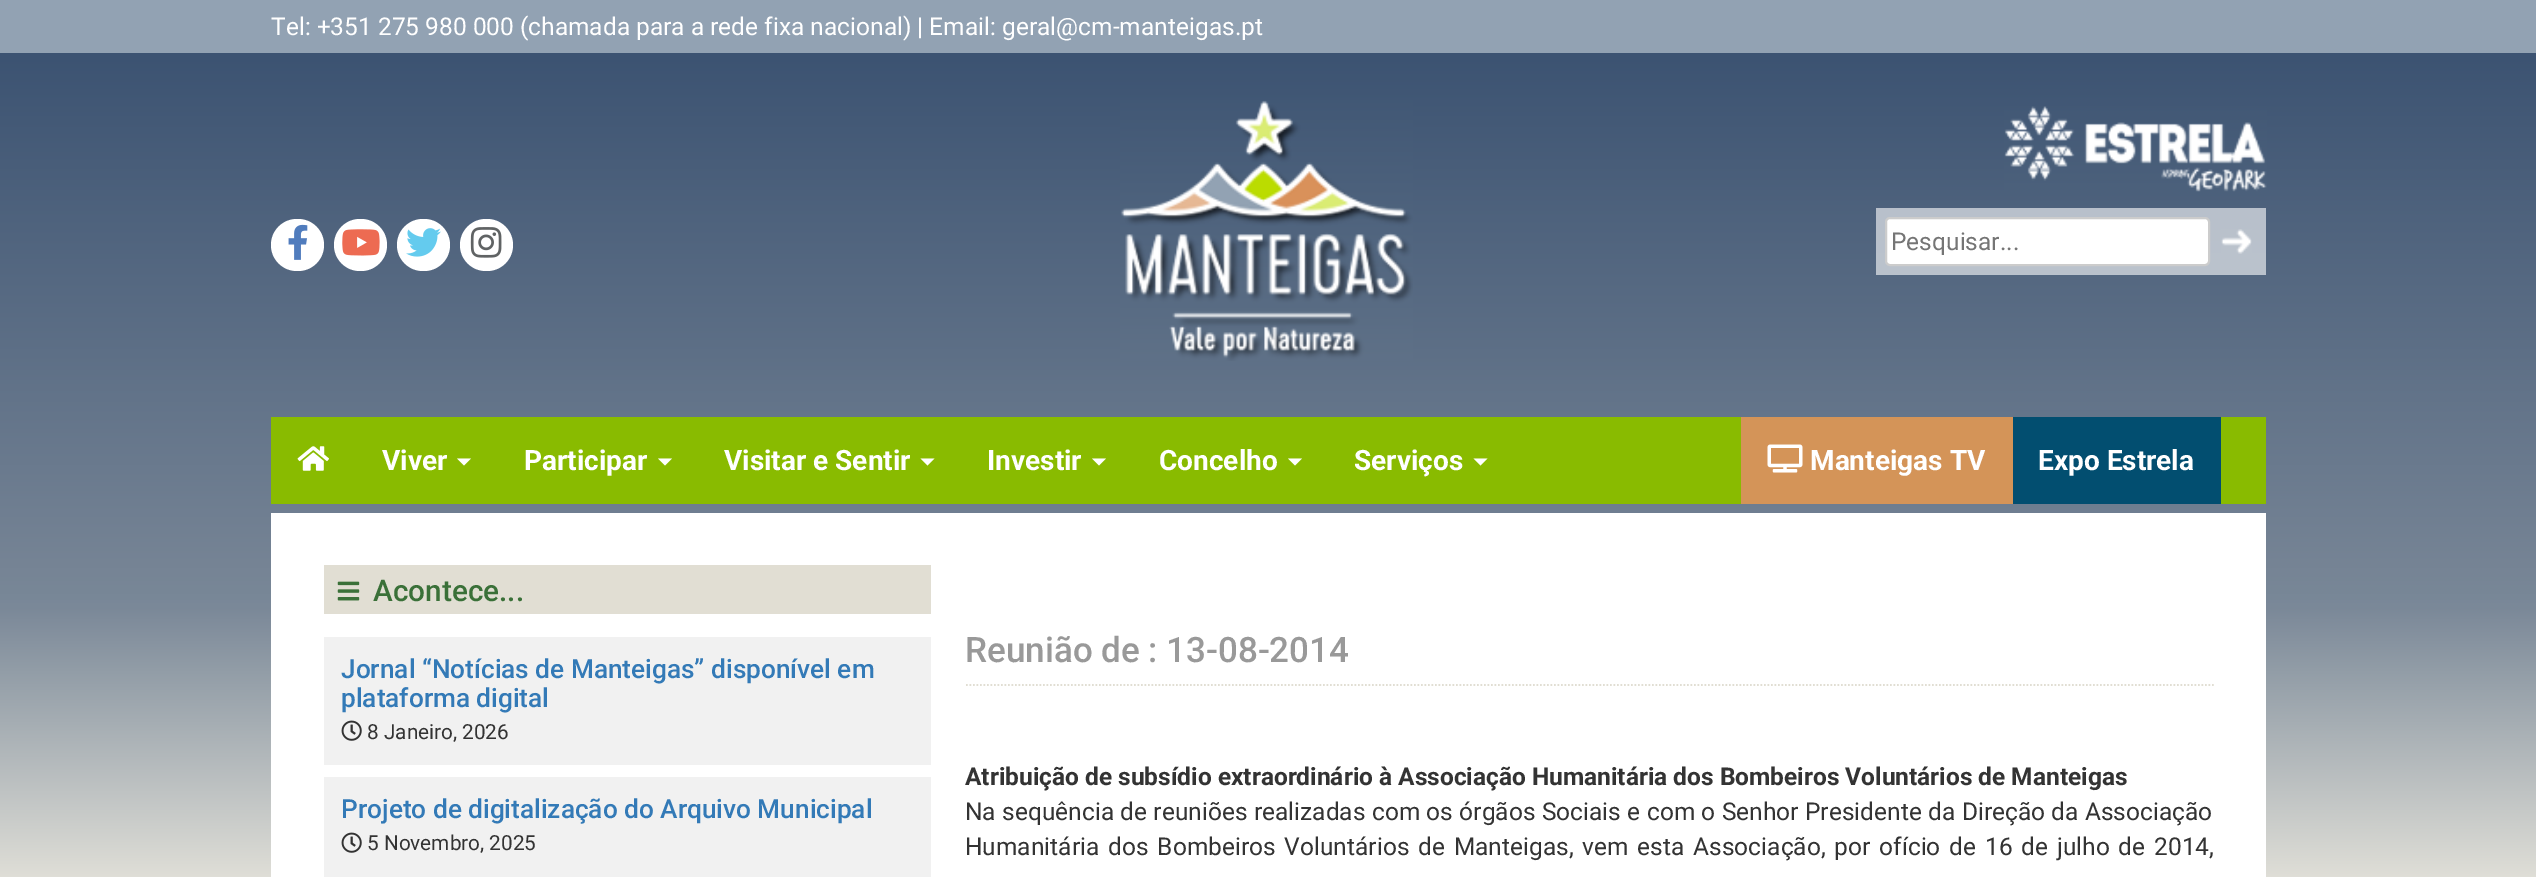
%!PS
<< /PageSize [2536 877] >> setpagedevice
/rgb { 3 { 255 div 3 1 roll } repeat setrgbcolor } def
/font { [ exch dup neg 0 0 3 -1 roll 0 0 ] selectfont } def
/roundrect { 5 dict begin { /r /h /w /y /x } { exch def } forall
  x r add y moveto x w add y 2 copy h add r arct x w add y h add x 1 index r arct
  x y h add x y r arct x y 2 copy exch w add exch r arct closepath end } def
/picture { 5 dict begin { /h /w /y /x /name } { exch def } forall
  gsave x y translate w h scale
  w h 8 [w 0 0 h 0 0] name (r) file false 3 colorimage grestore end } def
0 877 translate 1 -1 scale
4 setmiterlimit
255 255 255 rgb
0 0 2536 877 rectfill
gsave 0 53 moveto 2536 53 lineto 2536 877 lineto 0 877 lineto closepath clip newpath
<< /ShadingType 2 /ColorSpace /DeviceRGB /Coords [1269 0 1269 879] /Extend [true true] /Function << /FunctionType 3 /Domain [0 1] /Functions [<< /FunctionType 2 /Domain [0 1] /C0 [0.212 0.306 0.431] /C1 [0.478 0.533 0.596] /N 1 >> << /FunctionType 2 /Domain [0 1] /C0 [0.478 0.533 0.596] /C1 [0.878 0.875 0.843] /N 1 >>] /Bounds [0.69] /Encode [0 1 0 1] >> >> shfill grestore
gsave 1876 208 moveto 2266 208 lineto 2266 275 lineto 1876 275 lineto closepath clip newpath
<< /ShadingType 2 /ColorSpace /DeviceRGB /Coords [1269 0 1269 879] /Extend [true true] /Function << /FunctionType 3 /Domain [0 1] /Functions [<< /FunctionType 2 /Domain [0 1] /C0 [0.686 0.722 0.773] /C1 [0.792 0.812 0.839] /N 1 >> << /FunctionType 2 /Domain [0 1] /C0 [0.792 0.812 0.839] /C1 [0.953 0.949 0.937] /N 1 >>] /Bounds [0.69] /Encode [0 1 0 1] >> >> shfill grestore
146 162 179 rgb
0 0 2536 53 rectfill
255 255 255 rgb
271 219 53 52 26 roundrect fill
(img/1.rgb) 288 224 20 36 picture
334 219 53 52 26 roundrect fill
(img/2.rgb) 342 229 38 27 picture
397 219 53 52 26 roundrect fill
(img/3.rgb) 406 228 35 29 picture
460 219 53 52 26 roundrect fill
(img/4.rgb) 470 227 32 31 picture
(img/5.rgb) 1120 100 293 261 picture
(img/6.rgb) 2004 106 263 86 picture
1886 218 323 47 4 roundrect gsave fill grestore
204 204 204 rgb
2 setlinewidth
stroke
(img/7.rgb) 2221 229 31 25 picture
137 187 0 rgb
271 417 1995 87 rectfill
(img/8.rgb) 297 446 32 25 picture
255 255 255 rgb
457 458.5 moveto 471 458.5 lineto 464 465.5 lineto closepath fill
658 458.5 moveto 672 458.5 lineto 665 465.5 lineto closepath fill
920.5 458.5 moveto 934.5 458.5 lineto 927.5 465.5 lineto closepath fill
1092 458.5 moveto 1106 458.5 lineto 1099 465.5 lineto closepath fill
1288 458.5 moveto 1302 458.5 lineto 1295 465.5 lineto closepath fill
1473.5 458.5 moveto 1487.5 458.5 lineto 1480.5 465.5 lineto closepath fill
212 148 88 rgb
1741 417 272 87 rectfill
(img/9.rgb) 1767 444 36 29 picture
[
  [2013 417 208 87 2 78 112]
  [271 513 1995 364 255 255 255]
  [324 565 607 49 225 222 211]
] { aload pop rgb rectfill } forall
(img/10.rgb) 337 581 23 20 picture
241 241 241 rgb
324 637 607 128 rectfill
(img/11.rgb) 341 720 21 21 picture
324 777 607 100 rectfill
(img/11.rgb) 341 832 21 21 picture
225 222 211 rgb
1.8 setlinewidth
[1.75 1.75] 0 setdash
966 685 moveto 2214 685 lineto stroke
/Roboto-Regular 24.5 font
255 255 255 rgb
271 35 moveto (Tel: +351 275 980 000 \(chamada para a rede fixa nacional\) | Email: geral@cm-manteigas.pt) show
117 117 117 rgb
1891 250 moveto (Pesquisar...) show
/Roboto-Bold 28 font
255 255 255 rgb
[
  [(Viver) 382 470]
  [(Participar) 524 470]
  [(Visitar e Sentir) 724 470]
  [(Investir) 987 470]
  [(Concelho) 1159 470]
  [(Serviços) 1354 470]
  [(Manteigas TV) 1810 470]
  [(Expo Estrela) 2038 470]
] { aload pop moveto show } forall
/Roboto-Medium 29.75 font
58 112 56 rgb
373 601 moveto (Acontece...) show
/Roboto-Medium 26.25 font
51 122 183 rgb
341 678 moveto (Jornal “Notícias de Manteigas” disponível em) show
341 707 moveto (plataforma digital) show
/Roboto-Regular 20.75 font
51 51 51 rgb
367 739 moveto (8 Janeiro, 2026) show
/Roboto-Medium 26.25 font
51 122 183 rgb
341 818 moveto (Projeto de digitalização do Arquivo Municipal) show
/Roboto-Regular 20.75 font
51 51 51 rgb
367 850 moveto (5 Novembro, 2025) show
/Roboto-Medium 35 font
153 153 153 rgb
965 662 moveto (Reunião de : 13-08-2014) show
/Roboto-Bold 24.5 font
51 51 51 rgb
965 785 moveto (Atribuição de subsídio extraordinário à Associação Humanitária dos Bombeiros Voluntários de Manteigas) show
/Roboto-Regular 24.5 font
965 820 moveto 0.3 0 32 (Na sequência de reuniões realizadas com os órgãos Sociais e com o Senhor Presidente da Direção da Associação) widthshow
965 855 moveto 2.75 0 32 (Humanitária dos Bombeiros Voluntários de Manteigas, vem esta Associação, por ofício de 16 de julho de 2014,) widthshow
showpage
